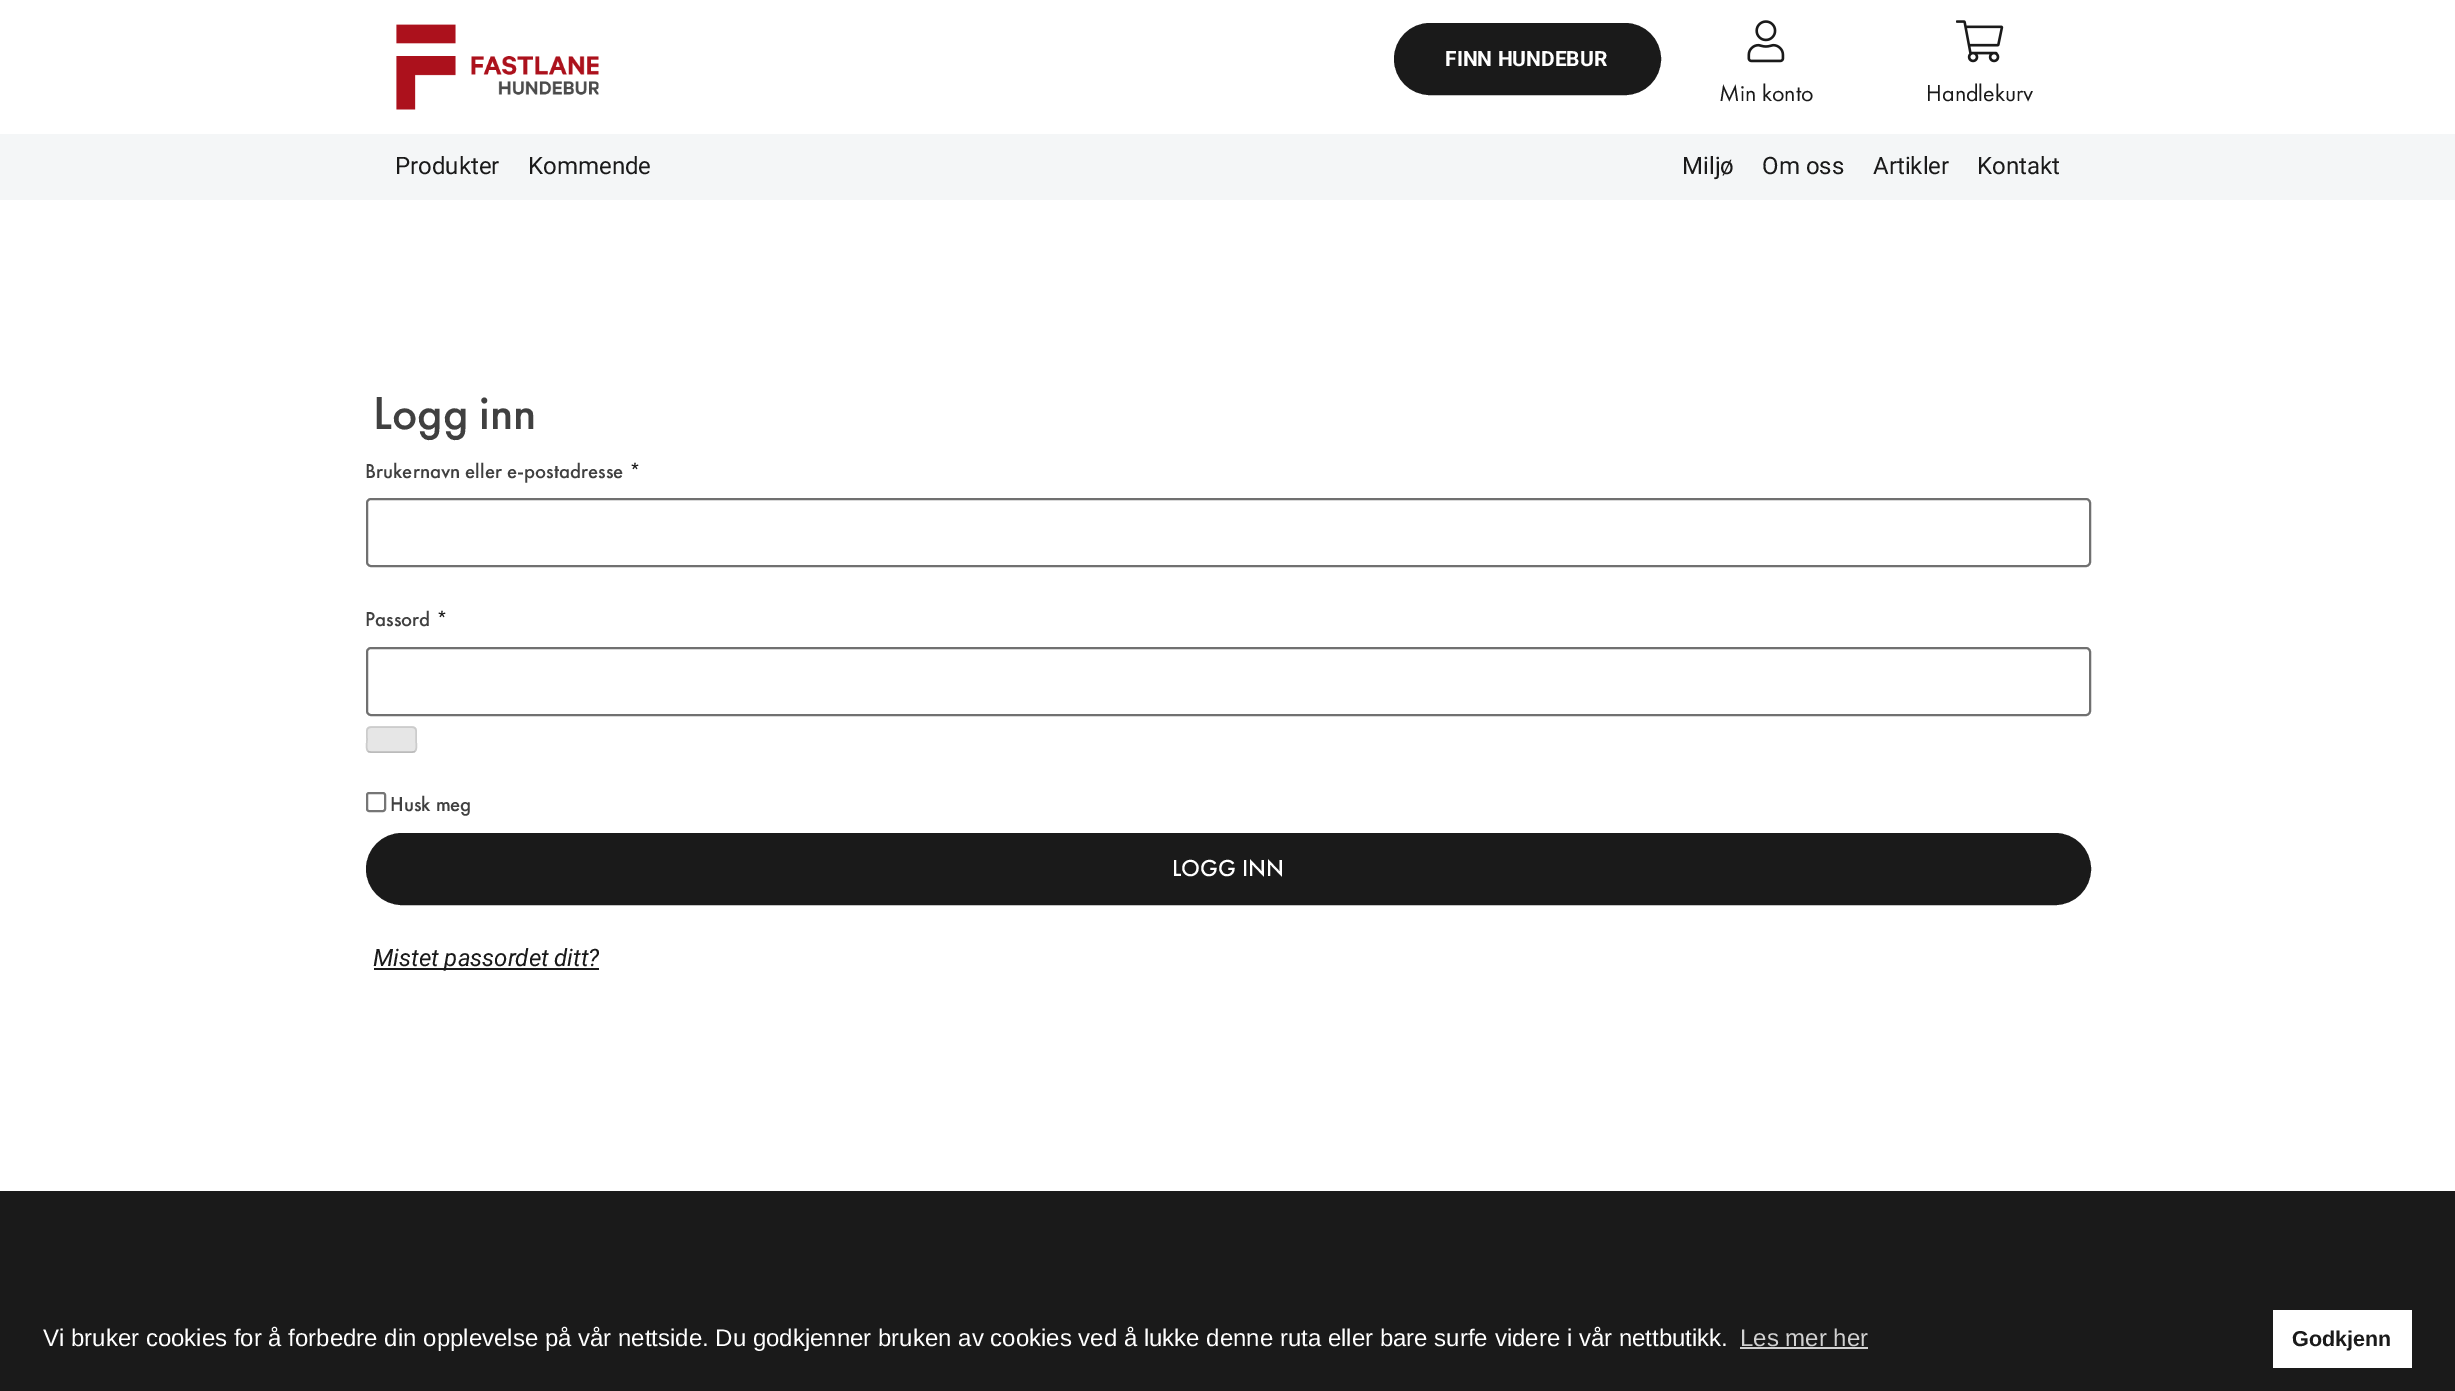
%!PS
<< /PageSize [2455 1391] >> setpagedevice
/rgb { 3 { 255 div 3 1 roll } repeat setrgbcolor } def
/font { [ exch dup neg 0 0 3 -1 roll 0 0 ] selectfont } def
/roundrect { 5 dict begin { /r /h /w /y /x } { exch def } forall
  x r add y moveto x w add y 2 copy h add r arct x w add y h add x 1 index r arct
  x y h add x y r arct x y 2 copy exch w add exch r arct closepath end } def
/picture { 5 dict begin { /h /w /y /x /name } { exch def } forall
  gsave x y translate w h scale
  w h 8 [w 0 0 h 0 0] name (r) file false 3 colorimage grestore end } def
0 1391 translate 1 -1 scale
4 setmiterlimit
255 255 255 rgb
0 0 2455 1391 rectfill
(img/1.rgb) 396 24 203 86 picture
26 26 26 rgb
1395.5 24.5 264 69 34.5 roundrect gsave fill grestore
3 setlinewidth
stroke
(img/2.rgb) 1747 20 38 43 picture
(img/3.rgb) 1956 20 48 43 picture
244 246 247 rgb
0 134 2455 66 rectfill
112 112 112 rgb
2 setlinewidth
367 499 1723 67 4 roundrect stroke
367 648 1723 67 4 roundrect stroke
230 230 230 rgb
366 726 51 27 5 roundrect fill
187 187 187 rgb
1.5 setlinewidth
415 751 moveto 414.5 752 413.5 752 412.5 752 curveto 370.5 752 lineto 369.5 752 368.5 752 368 751 curveto stroke
204 204 204 rgb
368 751 moveto 365.5 749 367 742.5 367 739.5 curveto 367 727 365 727 377.5 727 curveto 405.5 727 lineto 418 727 416 727 416 739.5 curveto 416 742.5 417.5 749 415 751 curveto stroke
118 118 118 rgb
2 setlinewidth
367 793 18 18 2 roundrect stroke
26 26 26 rgb
367 834 1723 70 35 roundrect gsave fill grestore
stroke
[
  [374 968 225 2 26 26 26]
  [0 1191 2455 200 26 26 26]
  [1740 1347 128 2 209 209 209]
  [2273 1310 139 58 255 255 255]
] { aload pop rgb rectfill } forall
/Roboto-Bold 21 font
1445 66 moveto (FINN HUNDEBUR) show
/FuturaPT-Regular 24 font
26 26 26 rgb
1719 101 moveto (Min konto) show
1926 101 moveto (Handlekurv) show
/Roboto-Regular 24 font
[
  [(Produkter) 395 174]
  [(Kommende) 528 174]
  [(Miljø) 1682 174]
  [(Om oss) 1762 174]
  [(Artikler) 1873 174]
  [(Kontakt) 1977 174]
] { aload pop moveto show } forall
/FuturaPT-Medium 48 font
64 64 64 rgb
373 429 moveto (Logg inn) show
/FuturaPT-Medium 21 font
365 478 moveto (Brukernavn eller e-postadresse) show
/FuturaPT-Regular 21 font
26 26 26 rgb
629 478 moveto (*) show
/FuturaPT-Medium 21 font
64 64 64 rgb
365 626 moveto (Passord) show
/FuturaPT-Regular 21 font
26 26 26 rgb
436 626 moveto (*) show
/FuturaPT-Medium 21 font
64 64 64 rgb
390 811 moveto (Husk meg) show
/FuturaPT-Medium 24 font
255 255 255 rgb
1172 876 moveto (LOGG INN) show
/Roboto-Italic 24 font
26 26 26 rgb
373 966 moveto (Mistet passordet ditt?) show
/LiberationSans-Regular 24 font
255 255 255 rgb
43 1346 moveto (Vi bruker cookies for å forbedre din opplevelse på vår nettside. Du godkjenner bruken av cookies ved å lukke denne ruta eller bare surfe videre i vår nettbutikk.) show
209 209 209 rgb
1740 1346 moveto (Les mer her) show
/LiberationSans-Bold 21.5 font
26 26 26 rgb
2292 1346 moveto (Godkjenn) show
showpage
